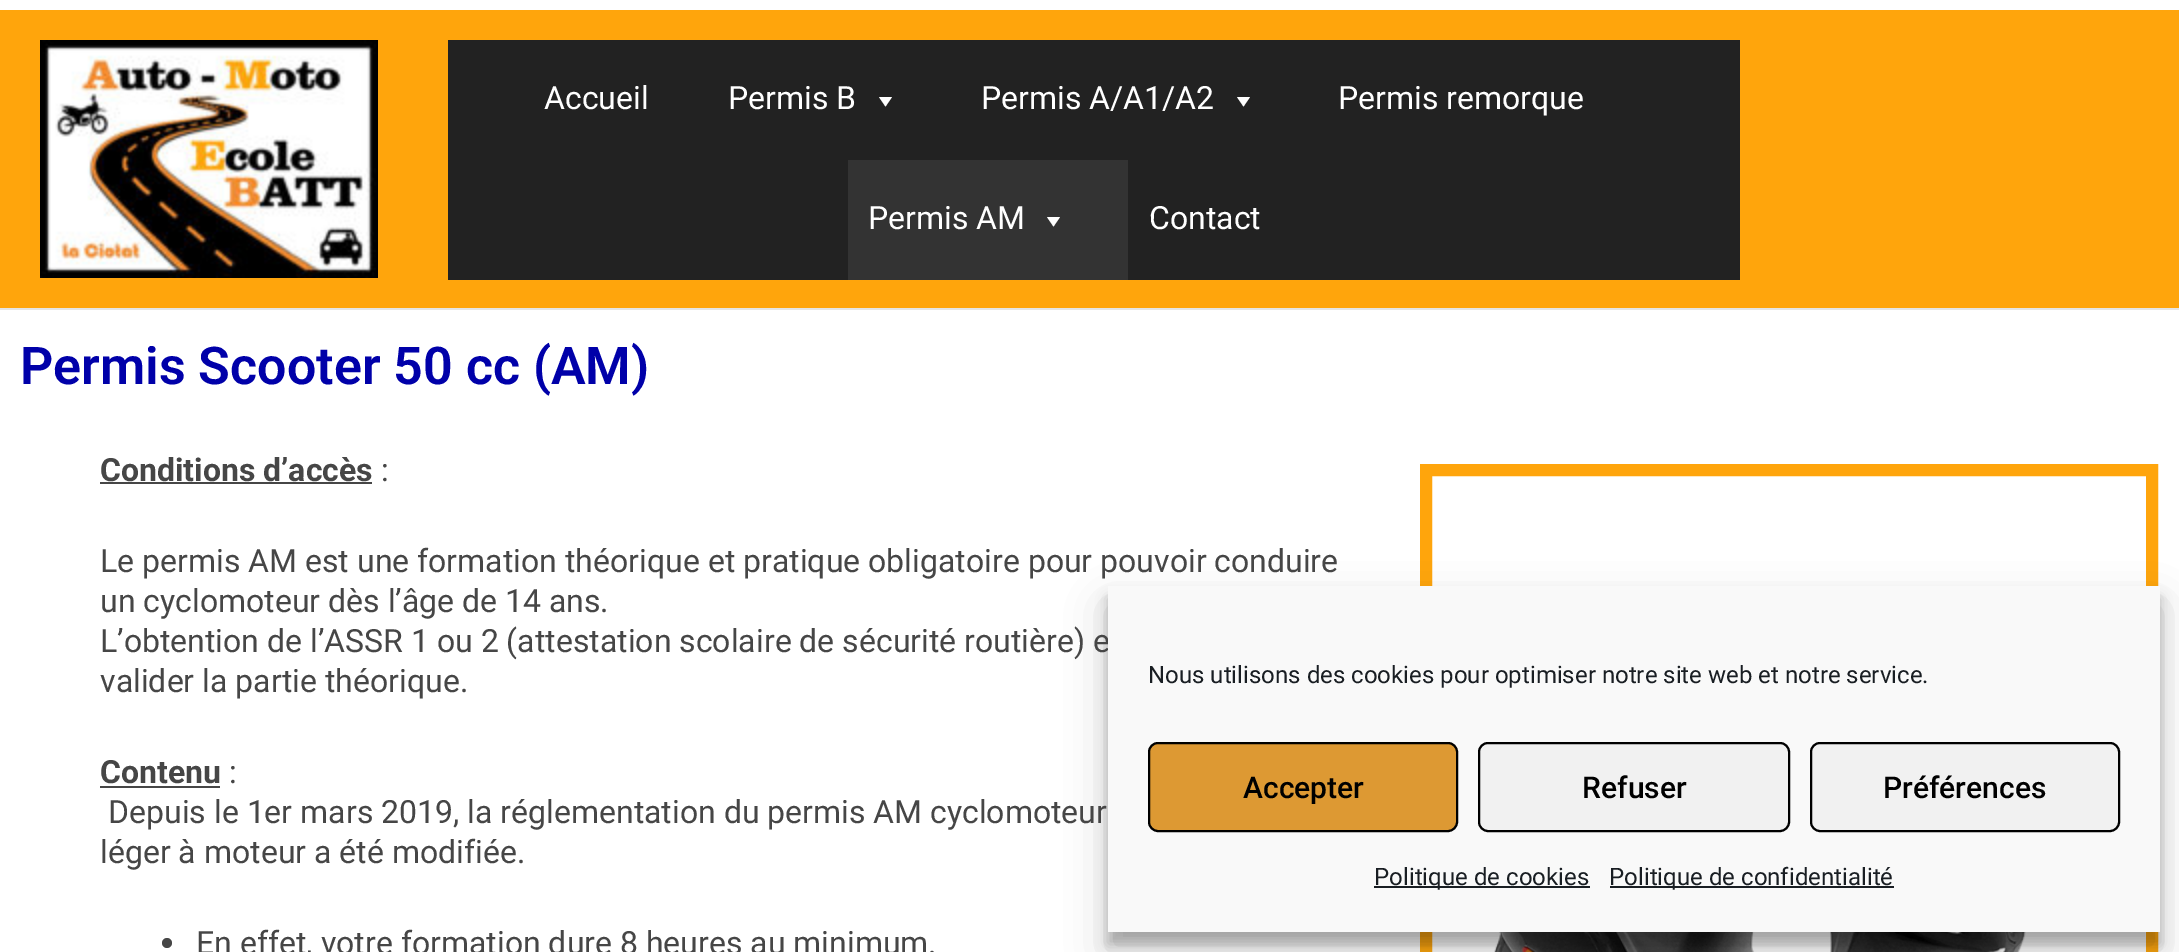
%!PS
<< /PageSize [2179 952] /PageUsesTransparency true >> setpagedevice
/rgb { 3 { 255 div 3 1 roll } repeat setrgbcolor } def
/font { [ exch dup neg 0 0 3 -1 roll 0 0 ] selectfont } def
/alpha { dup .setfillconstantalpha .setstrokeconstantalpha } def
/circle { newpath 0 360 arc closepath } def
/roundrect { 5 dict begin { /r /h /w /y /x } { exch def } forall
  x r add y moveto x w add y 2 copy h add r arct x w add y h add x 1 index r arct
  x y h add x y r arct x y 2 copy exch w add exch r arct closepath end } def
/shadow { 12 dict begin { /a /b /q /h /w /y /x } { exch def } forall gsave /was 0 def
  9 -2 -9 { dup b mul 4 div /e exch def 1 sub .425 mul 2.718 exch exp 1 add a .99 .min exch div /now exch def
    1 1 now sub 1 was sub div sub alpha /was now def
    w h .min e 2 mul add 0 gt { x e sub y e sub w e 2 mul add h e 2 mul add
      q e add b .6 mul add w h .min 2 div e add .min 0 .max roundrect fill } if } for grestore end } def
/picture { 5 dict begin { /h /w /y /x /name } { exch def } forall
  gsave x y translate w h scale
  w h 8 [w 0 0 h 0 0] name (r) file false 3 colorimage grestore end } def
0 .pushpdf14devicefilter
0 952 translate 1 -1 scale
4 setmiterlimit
255 255 255 rgb
0 0 2179 952 rectfill
255 165 12 rgb
0 10 2179 298 rectfill
229 229 229 rgb
0 308 2179 2 rectfill
(img/1.rgb) 40 40 338 238 picture
34 34 34 rgb
448 40 1292 240 rectfill
255 255 255 rgb
892 97 moveto 885.5 106.5 lineto 879 97 lineto closepath fill
1250 97 moveto 1243.5 106.5 lineto 1237 97 lineto closepath fill
51 51 51 rgb
848 160 280 120 rectfill
255 255 255 rgb
1060 217 moveto 1053.5 226.5 lineto 1047 217 lineto closepath fill
70 70 70 rgb
100 482 272 2 rectfill
100 786 120 2 rectfill
167 943 5 circle fill
255 165 12 rgb
12 setlinewidth
1426 470 726 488 rectstroke
(img/2.rgb) 1492 932 534 20 picture
0 0 0 rgb
1108 598 1052 346 0 6 0.23 shadow
1108 606 1052 346 0 20 0.19 shadow
/Roboto-Regular 32 font
255 255 255 rgb
[
  [(Accueil) 544 109]
  [(Permis B) 728 109]
  [(Permis A/A1/A2) 981 109]
  [(Permis remorque) 1338 109]
  [(Permis AM) 868 229]
  [(Contact) 1149 229]
] { aload pop moveto show } forall
/Roboto-SemiBold 52 font
0 0 169 rgb
20 384 moveto (Permis Scooter 50 cc \(AM\)) show
/Roboto-Bold 32 font
70 70 70 rgb
100 481 moveto (Conditions d’accès) show
/Roboto-Regular 32 font
[
  [(:) 381 481]
  [(Le permis AM est une formation théorique et pratique obligatoire pour pouvoir conduire) 100 572]
  [(un cyclomoteur dès l’âge de 14 ans.) 100 612]
  [(L’obtention de l’ASSR 1 ou 2 \(attestation scolaire de sécurité routière\) e) 100 652]
  [(valider la partie théorique.) 100 692]
] { aload pop moveto show } forall
/Roboto-Bold 32 font
100 783 moveto (Contenu) show
/Roboto-Regular 32 font
[
  [(:) 229 783]
  [(Depuis le 1er mars 2019, la réglementation du permis AM cyclomoteur) 108 823]
  [(léger à moteur a été modifiée.) 100 863]
  [(En effet, votre formation dure 8 heures au minimum.) 196 954]
] { aload pop moveto show } forall
249 249 249 rgb
1108 586 1052 346 rectfill
/Roboto-Regular 24 font
25 30 35 rgb
1148 683 moveto (Nous utilisons des cookies pour optimiser notre site web et notre service.) show
221 153 51 rgb
1149 743 308 88 9 roundrect gsave fill grestore
0 0 0 rgb
2 setlinewidth
stroke
/Roboto-Medium 30 font
1243 798 moveto (Accepter) show
241 241 241 rgb
1479 743 310 88 9 roundrect gsave fill grestore
0 0 0 rgb
stroke
1582 798 moveto (Refuser) show
241 241 241 rgb
1811 743 308 88 9 roundrect gsave fill grestore
0 0 0 rgb
stroke
1883 798 moveto (Préférences) show
25 30 35 rgb
1374 886 216 2 rectfill
/Roboto-Regular 24 font
1374 885 moveto (Politique de cookies) show
1610 886 284 2 rectfill
1609 885 moveto (Politique de confidentialité) show
.poppdf14devicefilter showpage
